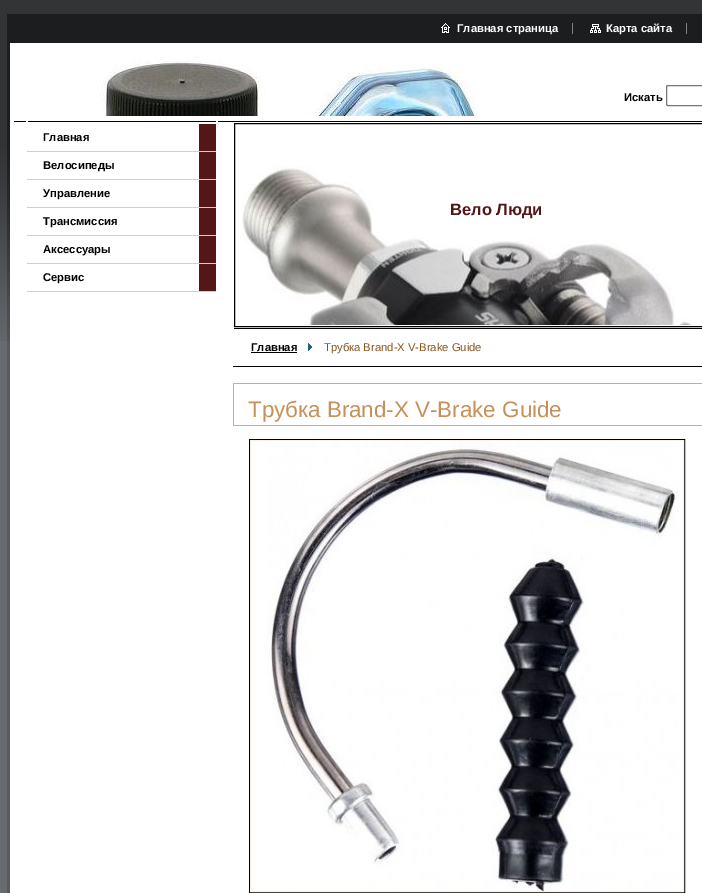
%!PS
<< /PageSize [702 893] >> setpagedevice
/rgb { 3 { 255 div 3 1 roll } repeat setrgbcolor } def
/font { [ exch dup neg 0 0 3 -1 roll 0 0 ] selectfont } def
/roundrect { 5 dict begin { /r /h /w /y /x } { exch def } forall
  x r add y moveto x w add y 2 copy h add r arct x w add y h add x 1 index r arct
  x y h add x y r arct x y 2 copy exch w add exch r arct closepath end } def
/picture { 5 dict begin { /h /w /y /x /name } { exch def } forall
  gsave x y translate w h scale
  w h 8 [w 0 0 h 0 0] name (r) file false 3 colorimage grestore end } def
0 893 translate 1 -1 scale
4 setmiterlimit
103 106 110 rgb
0 0 702 893 rectfill
(img/1.rgb) 7 341 3 552 picture
(img/2.rgb) 0 0 10 341 picture
[
  [10 43 692 850 255 255 255]
  [10 0 692 14 50 52 54]
  [10 14 692 29 27 29 31]
] { aload pop rgb rectfill } forall
(img/3.rgb) 441 23 9 10 picture
(img/4.rgb) 590 24 11 9 picture
130 130 130 rgb
572 23 1 11 rectfill
686 23 1 11 rectfill
(img/5.rgb) 100 57 383 59 picture
118 118 118 rgb
666.5 85.5 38 20 1.5 roundrect stroke
(img/6.rgb) 14 121 202 1 picture
[
  [199 124 17 167 84 22 23]
  [27 151 189 1 207 207 207]
  [27 179 189 1 207 207 207]
  [27 207 189 1 207 207 207]
  [27 235 189 1 207 207 207]
  [27 263 189 1 207 207 207]
  [27 291 189 1 207 207 207]
  [218 121 484 1 0 0 0]
  [234 328 468 1 0 0 0]
] { aload pop rgb rectfill } forall
234.5 123.5 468 203 rectstroke
(img/7.rgb) 242 165 450 160 picture
233 366 469 1 rectfill
251 352 46 1 rectfill
(img/8.rgb) 308 343 4 8 picture
[
  [233 383 469 1 206 172 136]
  [233 425 469 1 206 172 136]
  [233 383 1 43 206 172 136]
] { aload pop rgb rectfill } forall
0 0 0 rgb
249.5 439.5 435 453 rectstroke
253 242 230 rgb
250.5 440.5 433 451 rectstroke
(img/9.rgb) 267 441 412 450 picture
/LiberationSans-Bold 11.25 font
255 255 255 rgb
457 32 moveto (Главная страница) show
606 32 moveto (Карта сайта) show
0 0 0 rgb
[
  [(Искать) 624 101]
  [(Главная) 43 141]
  [(Велосипеды) 43 169]
  [(Управление) 43 197]
  [(Трансмиссия) 43 225]
  [(Аксессуары) 43 253]
  [(Сервис) 43 281]
] { aload pop moveto show } forall
/LiberationSans-Bold 16.5 font
84 22 23 rgb
450 215 moveto (Вело Люди) show
/LiberationSans-Bold 11.25 font
0 0 0 rgb
251 351 moveto (Главная) show
/LiberationSans-Regular 11.25 font
134 83 28 rgb
324 351 moveto (Трубка Brand-X V-Brake Guide) show
/LiberationSans-Regular 22.4 font
198 145 89 rgb
248 417 moveto (Трубка Brand-X V-Brake Guide) show
showpage
